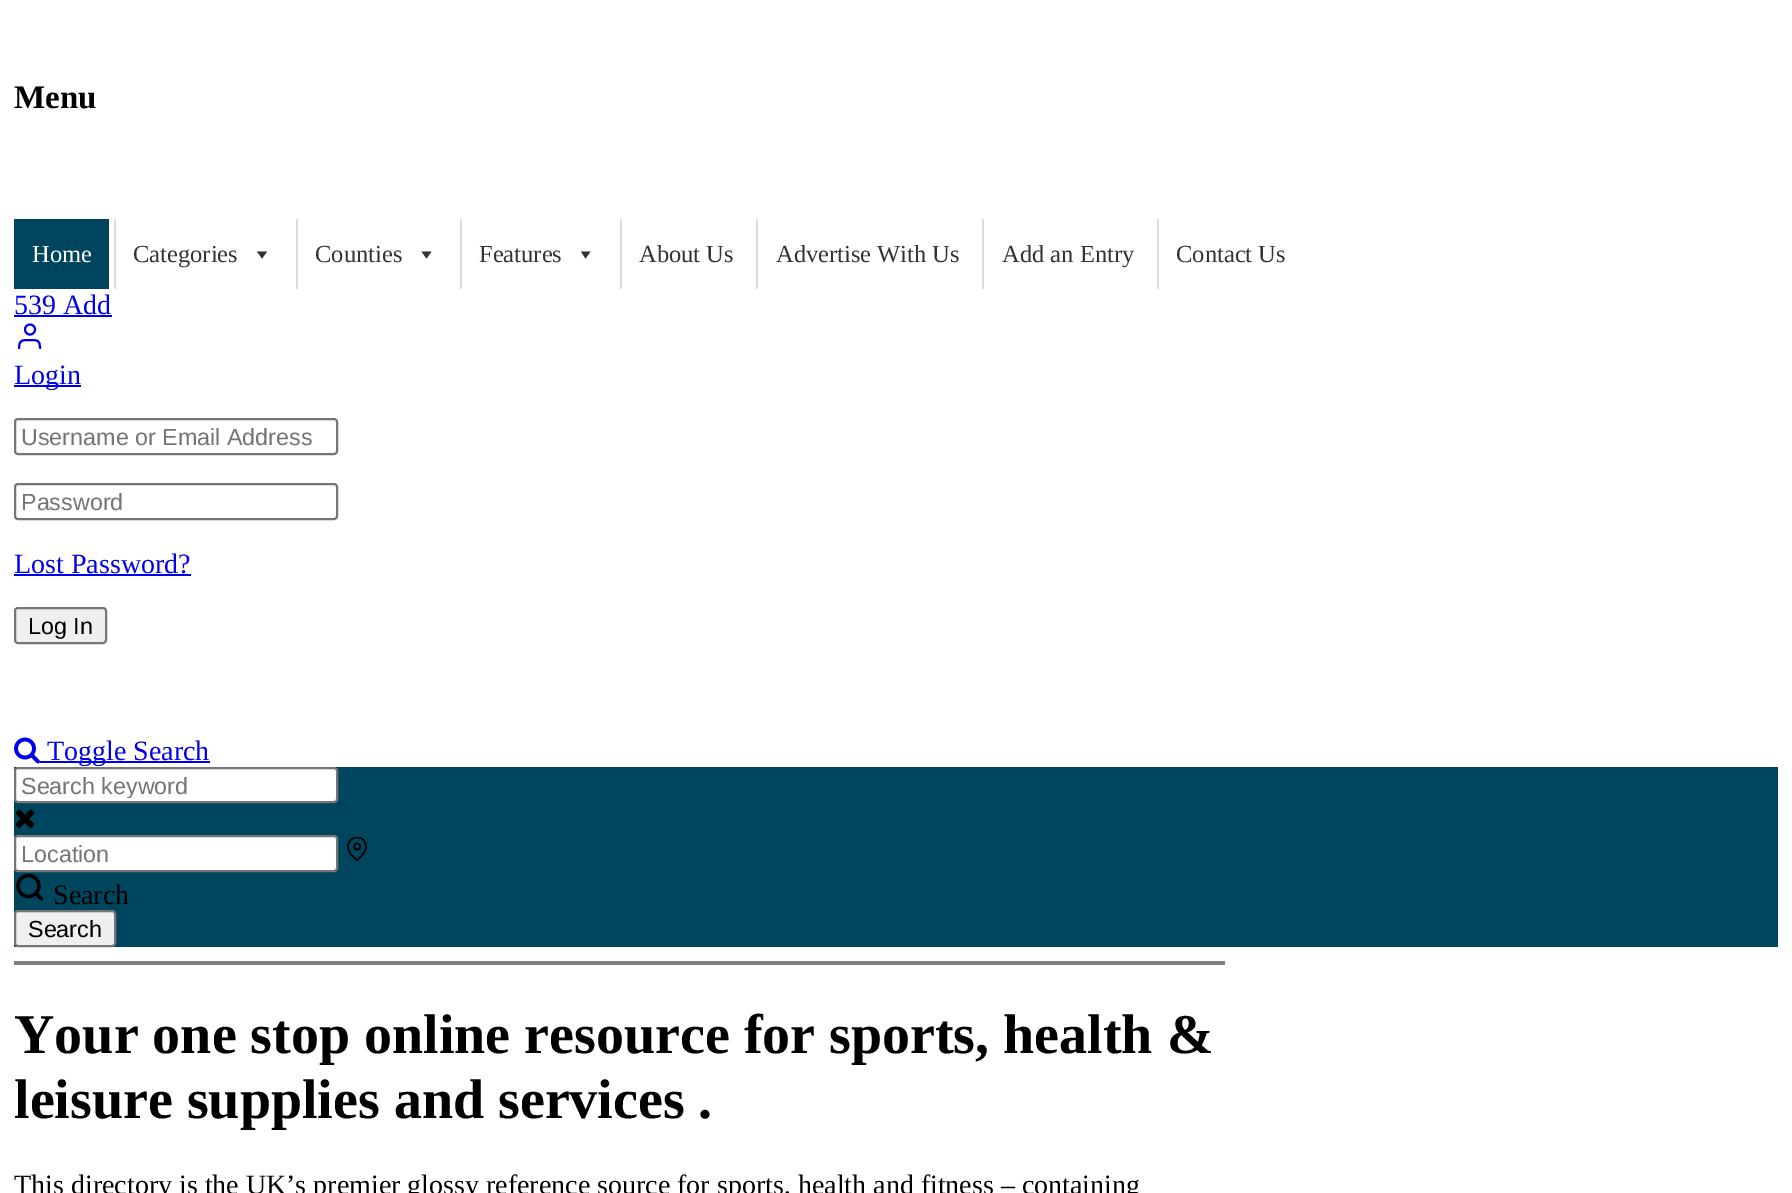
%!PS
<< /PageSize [1792 1193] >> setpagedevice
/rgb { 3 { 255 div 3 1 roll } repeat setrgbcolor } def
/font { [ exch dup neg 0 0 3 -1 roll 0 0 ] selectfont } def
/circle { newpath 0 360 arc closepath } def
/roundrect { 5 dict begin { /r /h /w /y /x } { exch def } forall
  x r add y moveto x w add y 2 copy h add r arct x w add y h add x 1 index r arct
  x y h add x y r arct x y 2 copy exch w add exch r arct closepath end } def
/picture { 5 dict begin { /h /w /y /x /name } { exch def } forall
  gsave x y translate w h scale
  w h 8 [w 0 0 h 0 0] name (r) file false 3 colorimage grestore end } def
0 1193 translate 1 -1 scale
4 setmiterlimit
255 255 255 rgb
0 0 1792 1193 rectfill
0 69 94 rgb
14 219 95 70 rectfill
221 221 221 rgb
114 219 2 70 rectfill
51 51 51 rgb
267 251.5 moveto 262 258.5 lineto 257 251.5 lineto closepath fill
221 221 221 rgb
296 219 2 70 rectfill
51 51 51 rgb
431.5 251.5 moveto 426.5 258.5 lineto 421.5 251.5 lineto closepath fill
221 221 221 rgb
460 219 2 70 rectfill
51 51 51 rgb
590.5 251.5 moveto 585.5 258.5 lineto 581 251.5 lineto closepath fill
[
  [620 219 2 70 221 221 221]
  [756 219 2 70 221 221 221]
  [982 219 2 70 221 221 221]
  [1157 219 2 70 221 221 221]
  [14 315 98 2 0 0 238]
] { aload pop rgb rectfill } forall
2 setlinewidth
30 329.5 5 circle stroke
1 setlinecap
1 setlinejoin
40 348 moveto 40 339.5 37 340 30 340 curveto 22.5 340 19 339.5 19 348 curveto stroke
14 385 67 2 rectfill
118 118 118 rgb
0 setlinecap
0 setlinejoin
15 419 322 35 3 roundrect stroke
15 484 322 35 3 roundrect stroke
0 0 238 rgb
14 574 177 2 rectfill
239 239 239 rgb
15 608 91 35 3 roundrect gsave fill grestore
118 118 118 rgb
stroke
(img/1.rgb) 14 737 26 27 picture
0 0 238 rgb
40 761 170 2 rectfill
0 69 94 rgb
14 767 1764 180 rectfill
255 255 255 rgb
15 768 322 34 3 roundrect gsave fill grestore
118 118 118 rgb
stroke
(img/2.rgb) 15 809 20 19 picture
gsave
345 837 24 24 rectclip
0 0 0 rgb
1.5 setlinewidth
1 setlinecap
1 setlinejoin
366 846.5 moveto 366 854 357 860 357 860 curveto 337.5 847 354 830.5 363.5 840 curveto 365 842 366 844.5 366 846.5 curveto closepath stroke
grestore
255 255 255 rgb
15 836 322 35 3 roundrect gsave fill grestore
118 118 118 rgb
stroke
0 0 0 rgb
1.5 setlinewidth
357 846.5 3 circle stroke
3.3 setlinewidth
28.5 886 10.5 circle stroke
1 setlinecap
1 setlinejoin
41.5 899 moveto 36 893.5 lineto stroke
239 239 239 rgb
15 911 100 35 3 roundrect gsave fill grestore
118 118 118 rgb
2 setlinewidth
0 setlinecap
0 setlinejoin
stroke
128 128 128 rgb
14 961 1211 4 rectfill
/LiberationSerif-Bold 33 font
0 0 0 rgb
14 108 moveto (Menu) show
/LiberationSerif-Regular 24.5 font
255 255 255 rgb
32 262 moveto (Home) show
51 51 51 rgb
[
  [(Categories) 133 262]
  [(Counties) 315 262]
  [(Features) 479 262]
  [(About Us) 639 262]
  [(Advertise With Us) 776 262]
  [(Add an Entry) 1002 262]
  [(Contact Us) 1176 262]
] { aload pop moveto show } forall
/LiberationSerif-Regular 28 font
0 0 238 rgb
14 314 moveto (539 Add) show
14 384 moveto (Login) show
/LiberationSans-Regular 23.3 font
117 117 117 rgb
21 445 moveto (Username or Email Address) show
21 510 moveto (Password) show
/LiberationSerif-Regular 28 font
0 0 238 rgb
14 573 moveto (Lost Password?) show
/LiberationSans-Regular 23.3 font
0 0 0 rgb
28 634 moveto (Log In) show
/LiberationSerif-Regular 28 font
0 0 238 rgb
47 760 moveto (Toggle Search) show
gsave
21 772 310 26 rectclip
/LiberationSans-Regular 23.3 font
117 117 117 rgb
21 794 moveto (Search keyword) show
grestore
/LiberationSans-Regular 23.3 font
117 117 117 rgb
21 862 moveto (Location) show
/LiberationSerif-Regular 28 font
0 0 0 rgb
53 904 moveto (Search) show
/LiberationSans-Regular 23.3 font
28 937 moveto (Search) show
/LiberationSerif-Bold 56 font
14 1053 moveto (Your one stop online resource for sports, health &) show
14 1118 moveto (leisure supplies and services .) show
/LiberationSerif-Regular 28 font
14 1194 moveto (This directory is the UK’s premier glossy reference source for sports, health and fitness – containing) show
showpage
